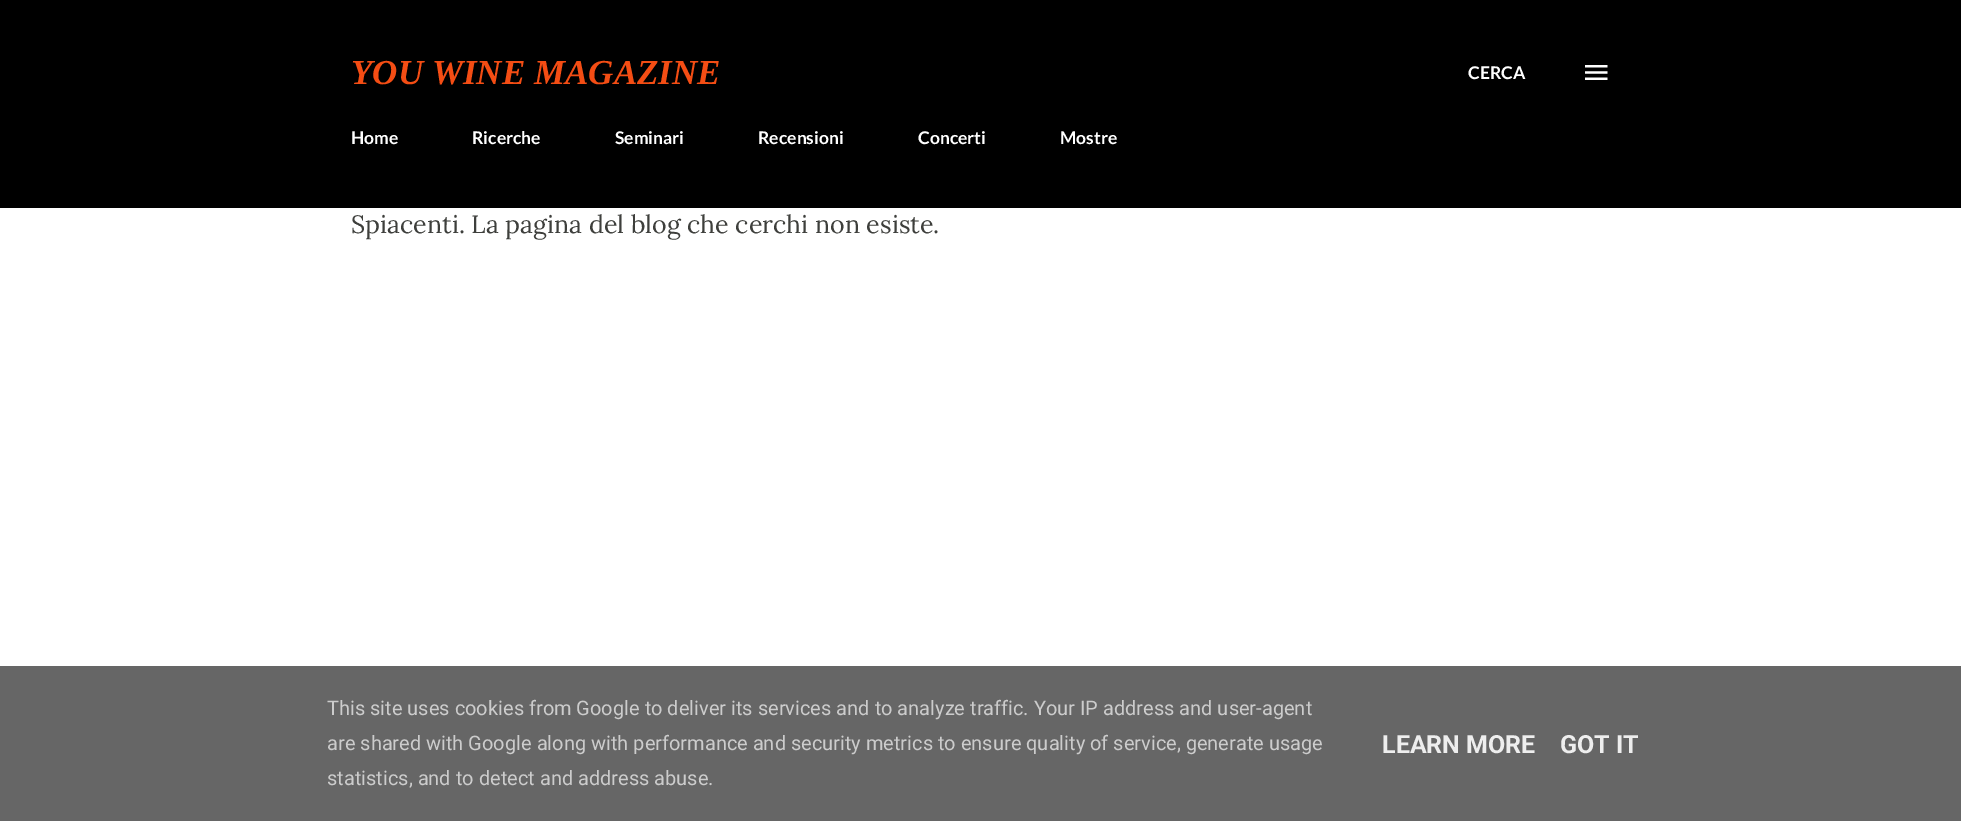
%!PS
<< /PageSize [1961 821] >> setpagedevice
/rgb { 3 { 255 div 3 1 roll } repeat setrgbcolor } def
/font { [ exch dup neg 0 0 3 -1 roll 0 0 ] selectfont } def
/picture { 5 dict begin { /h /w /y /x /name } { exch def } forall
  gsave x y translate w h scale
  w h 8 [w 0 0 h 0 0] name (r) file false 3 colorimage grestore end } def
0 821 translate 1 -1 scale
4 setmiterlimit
255 255 255 rgb
0 0 1961 821 rectfill
0 0 0 rgb
0 0 1961 208 rectfill
(img/1.rgb) 1585 65 23 15 picture
102 102 102 rgb
0 666 1961 155 rectfill
/LiberationSerif-BoldItalic 35 font
244 77 20 rgb
351 84 moveto (YOU WINE MAGAZINE) show
/Lato-Bold 17.5 font
255 255 255 rgb
[
  [(CERCA) 1468 79]
  [(Home) 351 144]
  [(Ricerche) 472 144]
  [(Seminari) 615 144]
  [(Recensioni) 758 144]
  [(Concerti) 918 144]
  [(Mostre) 1060 144]
] { aload pop moveto show } forall
/Lora-Regular 25 font
62 63 60 rgb
351 233 moveto (Spiacenti. La pagina del blog che cerchi non esiste.) show
/Roboto-Regular 20 font
204 204 204 rgb
[
  [(This site uses cookies from Google to deliver its services and to analyze traffic. Your IP address and user-agent) 327 715]
  [(are shared with Google along with performance and security metrics to ensure quality of service, generate usage) 327 750]
  [(statistics, and to detect and address abuse.) 327 785]
] { aload pop moveto show } forall
/Roboto-Bold 25 font
238 238 238 rgb
1382 753 moveto (LEARN MORE) show
1560 753 moveto (GOT IT) show
showpage
